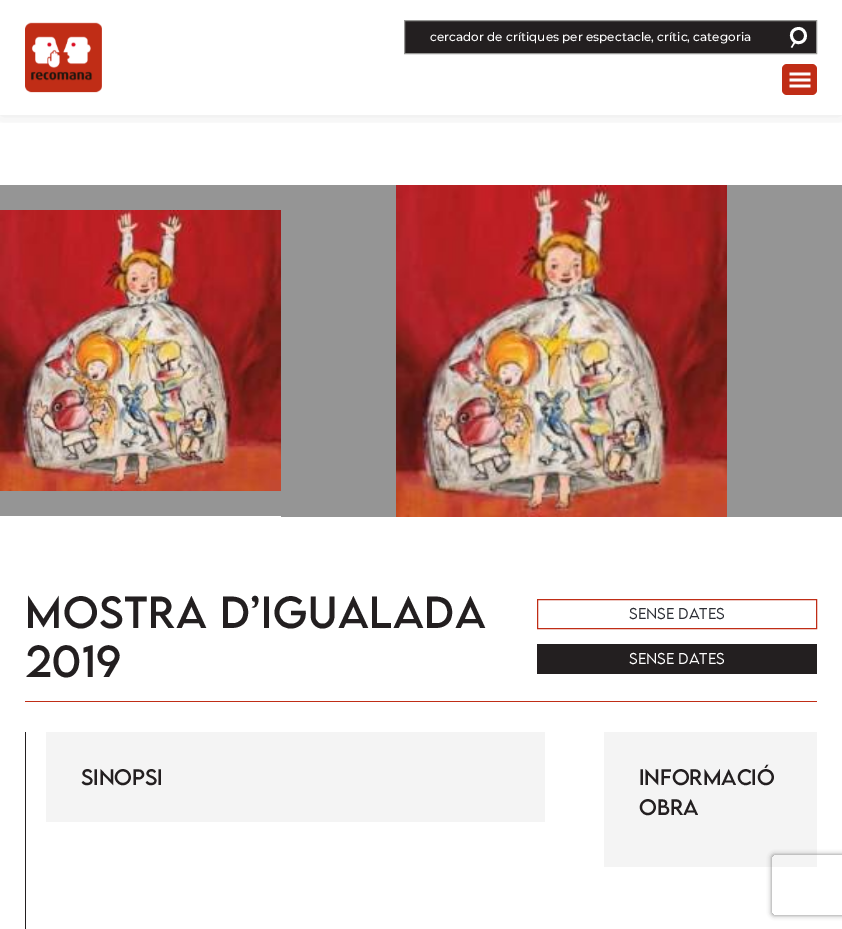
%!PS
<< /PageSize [842 929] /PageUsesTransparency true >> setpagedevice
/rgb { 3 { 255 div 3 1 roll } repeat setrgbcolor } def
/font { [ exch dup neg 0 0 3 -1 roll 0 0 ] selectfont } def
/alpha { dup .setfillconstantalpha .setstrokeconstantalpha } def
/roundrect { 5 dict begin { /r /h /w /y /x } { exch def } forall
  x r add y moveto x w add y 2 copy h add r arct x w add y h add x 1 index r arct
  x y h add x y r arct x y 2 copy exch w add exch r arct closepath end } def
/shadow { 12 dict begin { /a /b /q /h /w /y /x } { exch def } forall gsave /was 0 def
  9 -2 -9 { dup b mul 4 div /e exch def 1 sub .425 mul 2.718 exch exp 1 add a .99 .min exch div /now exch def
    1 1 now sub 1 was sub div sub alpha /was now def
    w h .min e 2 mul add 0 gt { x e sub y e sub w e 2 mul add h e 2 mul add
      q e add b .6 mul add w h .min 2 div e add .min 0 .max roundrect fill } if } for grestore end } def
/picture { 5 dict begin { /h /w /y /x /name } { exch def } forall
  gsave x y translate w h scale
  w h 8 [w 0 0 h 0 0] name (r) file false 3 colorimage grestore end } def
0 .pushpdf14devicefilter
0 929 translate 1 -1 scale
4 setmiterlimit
255 255 255 rgb
0 0 842 929 rectfill
gsave
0 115 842 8 rectclip
0 0 0 rgb
0 0 842 115 0 10 0.1 shadow
grestore
(img/1.rgb) 25 22 77 71 picture
35 31 32 rgb
404.5 20.5 moveto 816.5 20.5 lineto 816.5 53.5 lineto 404.5 53.5 lineto closepath gsave fill grestore
151 151 149 rgb
stroke
255 255 255 rgb
2.8 setlinewidth
796 29 moveto 804.5 25.5 809.5 38.5 801.5 42 curveto 792.5 46 787 32 796 29 curveto stroke
1.4 setlinewidth
795.5 41 moveto 791.5 47.5 lineto stroke
192 45 22 rgb
782 64 35 31 5 roundrect fill
(img/2.rgb) 789 72 22 16 picture
149 149 149 rgb
0 185 281 331 rectfill
(img/3.rgb) 0 210 281 281 picture
281 185 561 332 rectfill
(img/4.rgb) 396 185 331 332 picture
192 45 22 rgb
25 701 792 1 rectfill
1 setlinewidth
537.5 599.5 279 29 rectstroke
[
  [537 644 280 30 35 31 32]
  [25 732 1 197 35 31 32]
  [46 732 499 90 244 244 244]
  [604 732 213 135 244 244 244]
] { aload pop rgb rectfill } forall
gsave
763 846 moveto 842 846 lineto 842 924 lineto 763 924 lineto closepath 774 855 moveto 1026 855 lineto 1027 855 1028 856 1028 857 curveto 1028 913 lineto 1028 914 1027 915 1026 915 curveto 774 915 lineto 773 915 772 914 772 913 curveto 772 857 lineto 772 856 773 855 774 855 curveto closepath eoclip newpath
128 128 128 rgb
772 855 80 60 2 2.5 1 shadow
grestore
/Montserrat-Medium 12 font
255 255 255 rgb
430 41 moveto (cercador de crítiques per espectacle, crític, categoria) show
/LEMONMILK-Regular 40 font
35 31 32 rgb
25 628 moveto 0.7 0 (Mostra d’Igualada) ashow
25 677 moveto 0.7 0 (2019) ashow
/LEMONMILK-Light 14 font
44 46 53 rgb
629 619 moveto (SENSE DATES) show
255 255 255 rgb
629 664 moveto (SENSE DATES) show
/LEMONMILK-Regular 20 font
35 31 32 rgb
[
  [(SINOPSI) 81 785]
  [(INFORMACIÓ) 639 785]
  [(OBRA) 639 815]
] { aload pop moveto show } forall
.poppdf14devicefilter showpage
